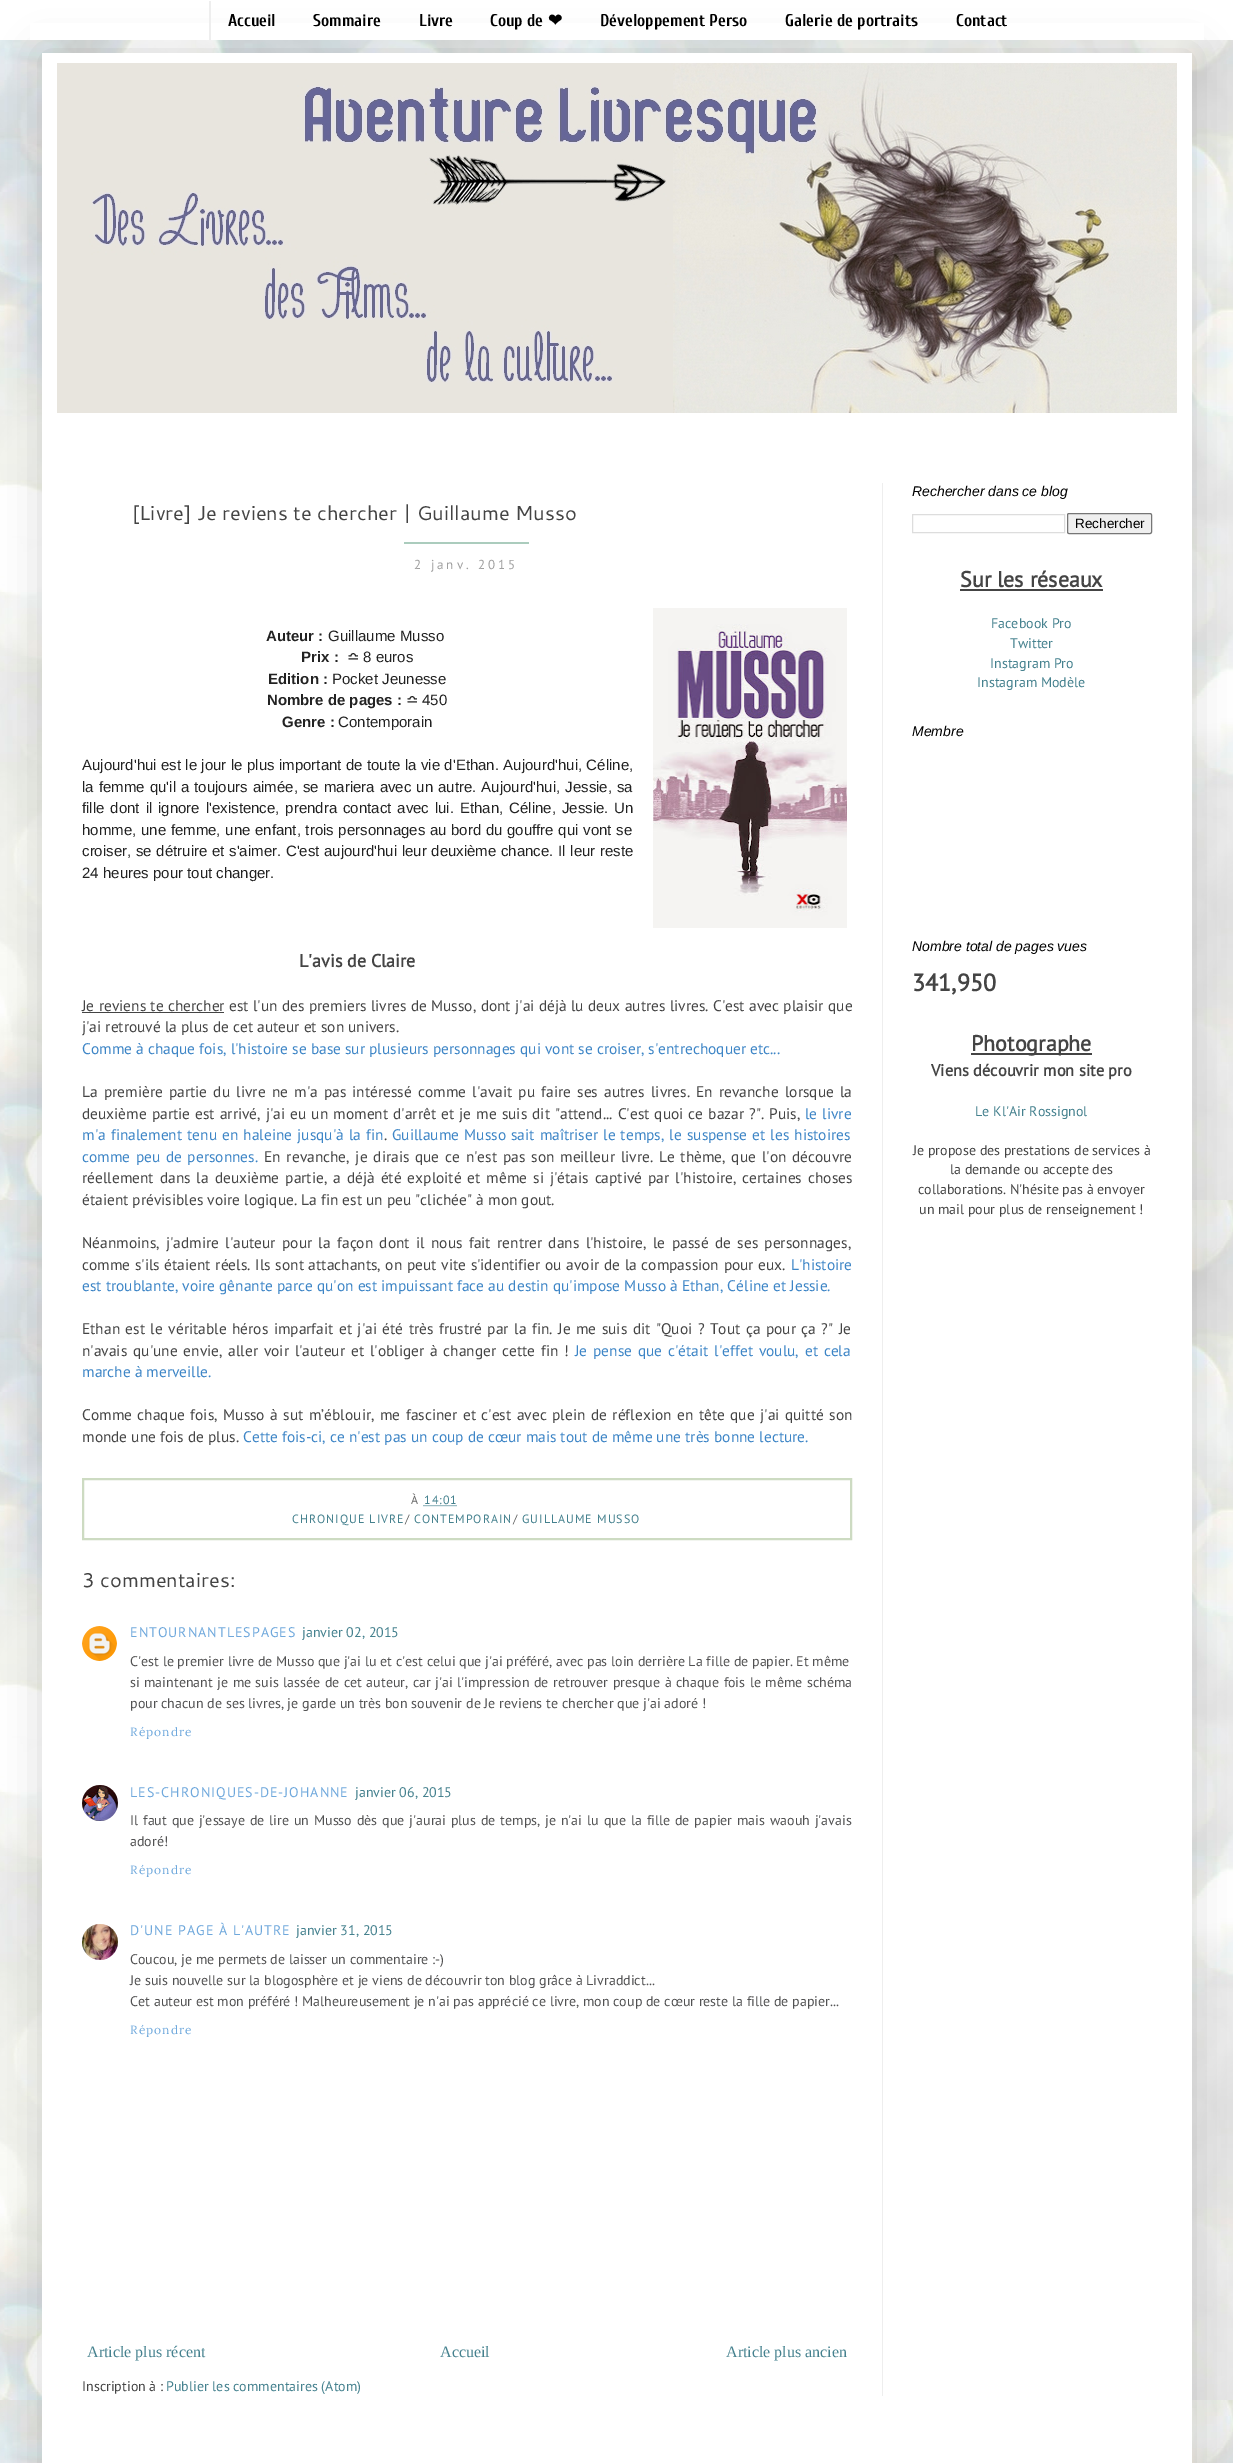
%!PS
<< /PageSize [1233 2463] /PageUsesTransparency true >> setpagedevice
/rgb { 3 { 255 div 3 1 roll } repeat setrgbcolor } def
/font { [ exch dup neg 0 0 3 -1 roll 0 0 ] selectfont } def
/alpha { dup .setfillconstantalpha .setstrokeconstantalpha } def
/roundrect { 5 dict begin { /r /h /w /y /x } { exch def } forall
  x r add y moveto x w add y 2 copy h add r arct x w add y h add x 1 index r arct
  x y h add x y r arct x y 2 copy exch w add exch r arct closepath end } def
/shadow { 12 dict begin { /a /b /q /h /w /y /x } { exch def } forall gsave /was 0 def
  9 -2 -9 { dup b mul 4 div /e exch def 1 sub .425 mul 2.718 exch exp 1 add a .99 .min exch div /now exch def
    1 1 now sub 1 was sub div sub alpha /was now def
    w h .min e 2 mul add 0 gt { x e sub y e sub w e 2 mul add h e 2 mul add
      q e add b .6 mul add w h .min 2 div e add .min 0 .max roundrect fill } if } for grestore end } def
/picture { 5 dict begin { /h /w /y /x /name } { exch def } forall
  gsave x y translate w h scale
  w h 8 [w 0 0 h 0 0] name (r) file false 3 colorimage grestore end } def
0 .pushpdf14devicefilter
0 2463 translate 1 -1 scale
4 setmiterlimit
255 255 255 rgb
0 0 1233 2463 rectfill
(img/1.rgb) 0 398 1233 2065 picture
(img/7.rgb) 0 40 1233 358 picture
0 0 0 rgb
42 53 1150 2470 0 20 0.15 shadow
[
  [30 23 1174 17 255 255 255]
  [209 1 2 39 238 238 238]
  [42 53 1150 2410 255 255 255]
] { aload pop rgb rectfill } forall
(img/2.rgb) 57 63 1120 350 picture
238 238 238 rgb
882 483 1 1913 rectfill
171 204 189 rgb
404 542 125 2 rectfill
(img/3.rgb) 653 608 194 320 picture
68 68 68 rgb
82 1012 142 1 rectfill
205 219 194 rgb
2 setlinewidth
83 1479 768 60 rectstroke
69 129 142 rgb
1 setlinewidth
[1 1] 0 setdash
423.5 1505.5 moveto 457.5 1505.5 lineto stroke
(img/4.rgb) 82 1626 35 35 picture
(img/5.rgb) 82 1785 36 36 picture
(img/6.rgb) 82 1924 36 36 picture
221 221 221 rgb
[] 0 setdash
912.5 514.5 152 18 rectstroke
239 239 239 rgb
1067.5 513.5 84 20 1.5 roundrect gsave fill grestore
118 118 118 rgb
stroke
68 68 68 rgb
960 589 143 2 rectfill
971 1053 121 2 rectfill
/Cuprum-Bold 17 font
0 0 0 rgb
[
  [(Accueil) 228 26]
  [(Sommaire) 313 26]
  [(Livre) 419 26]
  [(Coup de) 490 26]
] { aload pop moveto show } forall
/DejaVuSans-Bold 17 font
548 26 moveto (❤) show
/Cuprum-Bold 17 font
[
  [(Développement Perso) 600 26]
  [(Galerie de portraits) 785 26]
  [(Contact) 956 26]
] { aload pop moveto show } forall
/Cantarell-Regular 20 font
68 68 68 rgb
132 520 moveto ([Livre] Je reviens te chercher | Guillaume Musso) show
/PTSans-Regular 13 font
160 160 160 rgb
414 569 moveto 3 0 (2 janv. 2015) ashow
/LiberationSans-Bold 15 font
34 34 34 rgb
266 641 moveto (Auteur :) show
/LiberationSans-Regular 15 font
328 641 moveto (Guillaume Musso) show
/LiberationSans-Bold 15 font
301 662 moveto (Prix :) show
/DejaVuSans-Regular 15 font
347 662 moveto (≏) show
/LiberationSans-Regular 15 font
363 662 moveto (8 euros) show
/LiberationSans-Bold 15 font
268 684 moveto (Edition :) show
/LiberationSans-Regular 15 font
332 684 moveto (Pocket Jeunesse) show
/LiberationSans-Bold 15 font
267 705 moveto (Nombre de pages :) show
/DejaVuSans-Regular 15 font
406 705 moveto (≏) show
/LiberationSans-Regular 15 font
422 705 moveto (450) show
/LiberationSans-Bold 15 font
282 727 moveto (Genre :) show
/LiberationSans-Regular 15 font
338 727 moveto (Contemporain) show
82 770 moveto 0.25 0 32 (Aujourd'hui est le jour le plus important de toute la vie d'Ethan. Aujourd'hui, Céline,) widthshow
82 792 moveto 0.9 0 32 (la femme qu'il a toujours aimée, se mariera avec un autre. Aujourd'hui, Jessie, sa) widthshow
82 813 moveto 1.75 0 32 (fille dont il ignore l'existence, prendra contact avec lui. Ethan, Céline, Jessie. Un) widthshow
82 835 moveto 0.5 0 32 (homme, une femme, une enfant, trois personnages au bord du gouffre qui vont se) widthshow
82 856 moveto 0.5 0 32 (croiser, se détruire et s'aimer. C'est aujourd'hui leur deuxième chance. Il leur reste) widthshow
82 878 moveto (24 heures pour tout changer.) show
/PTSans-Bold 18 font
68 68 68 rgb
299 967 moveto (L'avis de Claire) show
/PTSans-Regular 15.4 font
82 1011 moveto 0.25 0 32 (Je reviens te chercher est l'un des premiers livres de Musso, dont j'ai déjà lu deux autres livres. C'est avec plaisir que) widthshow
82 1032 moveto (j'ai retrouvé la plus de cet auteur et son univers.) show
61 133 198 rgb
82 1054 moveto (Comme à chaque fois, l'histoire se base sur plusieurs personnages qui vont se croiser, s'entrechoquer etc...) show
68 68 68 rgb
82 1097 moveto 2.1 0 32 (La première partie du livre ne m'a pas intéressé comme l'avait pu faire ses autres livres. En revanche lorsque la) widthshow
82 1119 moveto 1 0 32 (deuxième partie est arrivé, j'ai eu un moment d'arrêt et je me suis dit "attend... C'est quoi ce bazar ?". Puis,) widthshow
61 133 198 rgb
805 1119 moveto 1 0 32 (le livre) widthshow
82 1140 moveto 1 0 32 (m'a finalement tenu en haleine jusqu'à la fin) widthshow
68 68 68 rgb
384 1140 moveto (.) show
61 133 198 rgb
392 1140 moveto 1 0 32 (Guillaume Musso sait maîtriser le temps, le suspense et les histoires) widthshow
82 1162 moveto 1.5 0 32 (comme peu de personnes.) widthshow
68 68 68 rgb
264 1162 moveto 1.7 0 32 (En revanche, je dirais que ce n'est pas son meilleur livre. Le thème, que l'on découvre) widthshow
82 1183 moveto 1.9 0 32 (réellement dans la deuxième partie, a déjà été exploité et même si j'étais captivé par l'histoire, certaines choses) widthshow
82 1205 moveto (étaient prévisibles voire logique. La fin est un peu "clichée" à mon gout.) show
82 1248 moveto 2.25 0 32 (Néanmoins, j'admire l'auteur pour la façon dont il nous fait rentrer dans l'histoire, le passé de ses personnages,) widthshow
82 1270 moveto 0.6 0 32 (comme s'ils étaient réels. Ils sont attachants, on peut vite s'identifier ou avoir de la compassion pour eux.) widthshow
61 133 198 rgb
791 1270 moveto (L'histoire) show
82 1291 moveto (est troublante, voire gênante parce qu'on est impuissant face au destin qu'impose Musso à Ethan, Céline et Jessie.) show
68 68 68 rgb
82 1334 moveto 1.4 0 32 (Ethan est le véritable héros imparfait et j'ai été très frustré par la fin. Je me suis dit "Quoi ? Tout ça pour ça ?" Je) widthshow
82 1356 moveto 1.75 0 32 (n'avais qu'une envie, aller voir l'auteur et l'obliger à changer cette fin !) widthshow
61 133 198 rgb
575 1356 moveto 1.75 0 32 (Je pense que c'était l'effet voulu, et cela) widthshow
82 1377 moveto (marche à merveille.) show
68 68 68 rgb
82 1420 moveto 1.4 0 32 (Comme chaque fois, Musso à sut m’éblouir, me fasciner et c'est avec plein de réflexion en tête que j'ai quitté son) widthshow
82 1442 moveto (monde une fois de plus.) show
61 133 198 rgb
243 1442 moveto (Cette fois-ci, ce n'est pas un coup de cœur mais tout de même une très bonne lecture.) show
/PTSans-Regular 12 font
102 102 102 rgb
411 1504 moveto 1 0 (À) ashow
69 129 142 rgb
424 1504 moveto 1 0 (14:01) ashow
292 1523 moveto 1 0 (CHRONIQUE LIVRE) ashow
102 102 102 rgb
405 1523 moveto 1 0 (/) ashow
69 129 142 rgb
414 1523 moveto 1 0 (CONTEMPORAIN) ashow
102 102 102 rgb
513 1523 moveto 1 0 (/) ashow
69 129 142 rgb
522 1523 moveto 1 0 (GUILLAUME MUSSO) ashow
/Cantarell-Regular 20 font
68 68 68 rgb
82 1587 moveto (3 commentaires:) show
/PTSans-Regular 14 font
111 168 220 rgb
130 1637 moveto 1 0 (ENTOURNANTLESPAGES) ashow
69 129 142 rgb
302 1637 moveto (janvier 02, 2015) show
82 82 83 rgb
130 1666 moveto (C'est le premier livre de Musso que j'ai lu et c'est celui que j'ai préféré, avec pas loin derrière La fille de papier. Et même) show
130 1687 moveto 0.75 0 32 (si maintenant je me suis lassée de cet auteur, car j'ai l'impression de retrouver presque à chaque fois le même schéma) widthshow
130 1708 moveto (pour chacun de ses livres, je garde un très bon souvenir de Je reviens te chercher que j'ai adoré !) show
/Lora-Regular 12 font
111 168 220 rgb
130 1736 moveto 1 0 (Répondre) ashow
/PTSans-Regular 14 font
130 1797 moveto 1 0 (LES-CHRONIQUES-DE-JOHANNE) ashow
69 129 142 rgb
355 1797 moveto (janvier 06, 2015) show
82 82 83 rgb
130 1825 moveto 1.15 0 32 (Il faut que j'essaye de lire un Musso dès que j'aurai plus de temps, je n'ai lu que la fille de papier mais waouh j'avais) widthshow
130 1846 moveto (adoré!) show
/Lora-Regular 12 font
111 168 220 rgb
130 1874 moveto 1 0 (Répondre) ashow
/PTSans-Regular 14 font
130 1935 moveto 1 0 (D'UNE PAGE À L'AUTRE) ashow
69 129 142 rgb
296 1935 moveto (janvier 31, 2015) show
82 82 83 rgb
[
  [(Coucou, je me permets de laisser un commentaire :-\)) 130 1964]
  [(Je suis nouvelle sur la blogosphère et je viens de découvrir ton blog grâce à Livraddict...) 130 1985]
  [(Cet auteur est mon préféré ! Malheureusement je n'ai pas apprécié ce livre, mon coup de cœur reste la fille de papier...) 130 2006]
] { aload pop moveto show } forall
/Lora-Regular 12 font
111 168 220 rgb
130 2034 moveto 1 0 (Répondre) ashow
/LiberationSerif-Regular 16 font
69 129 142 rgb
[
  [(Article plus récent) 87 2357]
  [(Accueil) 440 2357]
  [(Article plus ancien) 726 2357]
] { aload pop moveto show } forall
/PTSans-Regular 14 font
68 68 68 rgb
82 2391 moveto (Inscription à :) show
69 129 142 rgb
166 2391 moveto (Publier les commentaires \(Atom\)) show
/LiberationSans-Italic 14 font
0 0 0 rgb
912 496 moveto (Rechercher dans ce blog) show
/LiberationSans-Regular 13.5 font
1075 528 moveto (Rechercher) show
/PTSans-Bold 22 font
68 68 68 rgb
960 587 moveto (Sur les réseaux) show
/PTSans-Regular 14 font
69 129 142 rgb
[
  [(Facebook Pro) 991 628]
  [(Twitter) 1010 648]
  [(Instagram Pro) 990 668]
  [(Instagram Modèle) 977 687]
] { aload pop moveto show } forall
/LiberationSans-Italic 14 font
0 0 0 rgb
912 736 moveto (Membre) show
912 951 moveto (Nombre total de pages vues) show
/PTSans-Bold 24 font
68 68 68 rgb
912 991 moveto (341,950) show
/PTSans-Bold 22 font
971 1051 moveto (Photographe) show
/PTSans-Bold 16.4 font
931 1076 moveto (Viens découvrir mon site pro) show
/PTSans-Regular 14 font
69 129 142 rgb
975 1116 moveto (Le Kl'Air Rossignol) show
68 68 68 rgb
[
  [(Je propose des prestations de services à) 913 1155]
  [(la demande ou accepte des) 950 1174]
  [(collaborations. N'hésite pas à envoyer) 918 1194]
  [(un mail pour plus de renseignement !) 919 1214]
] { aload pop moveto show } forall
.poppdf14devicefilter showpage
